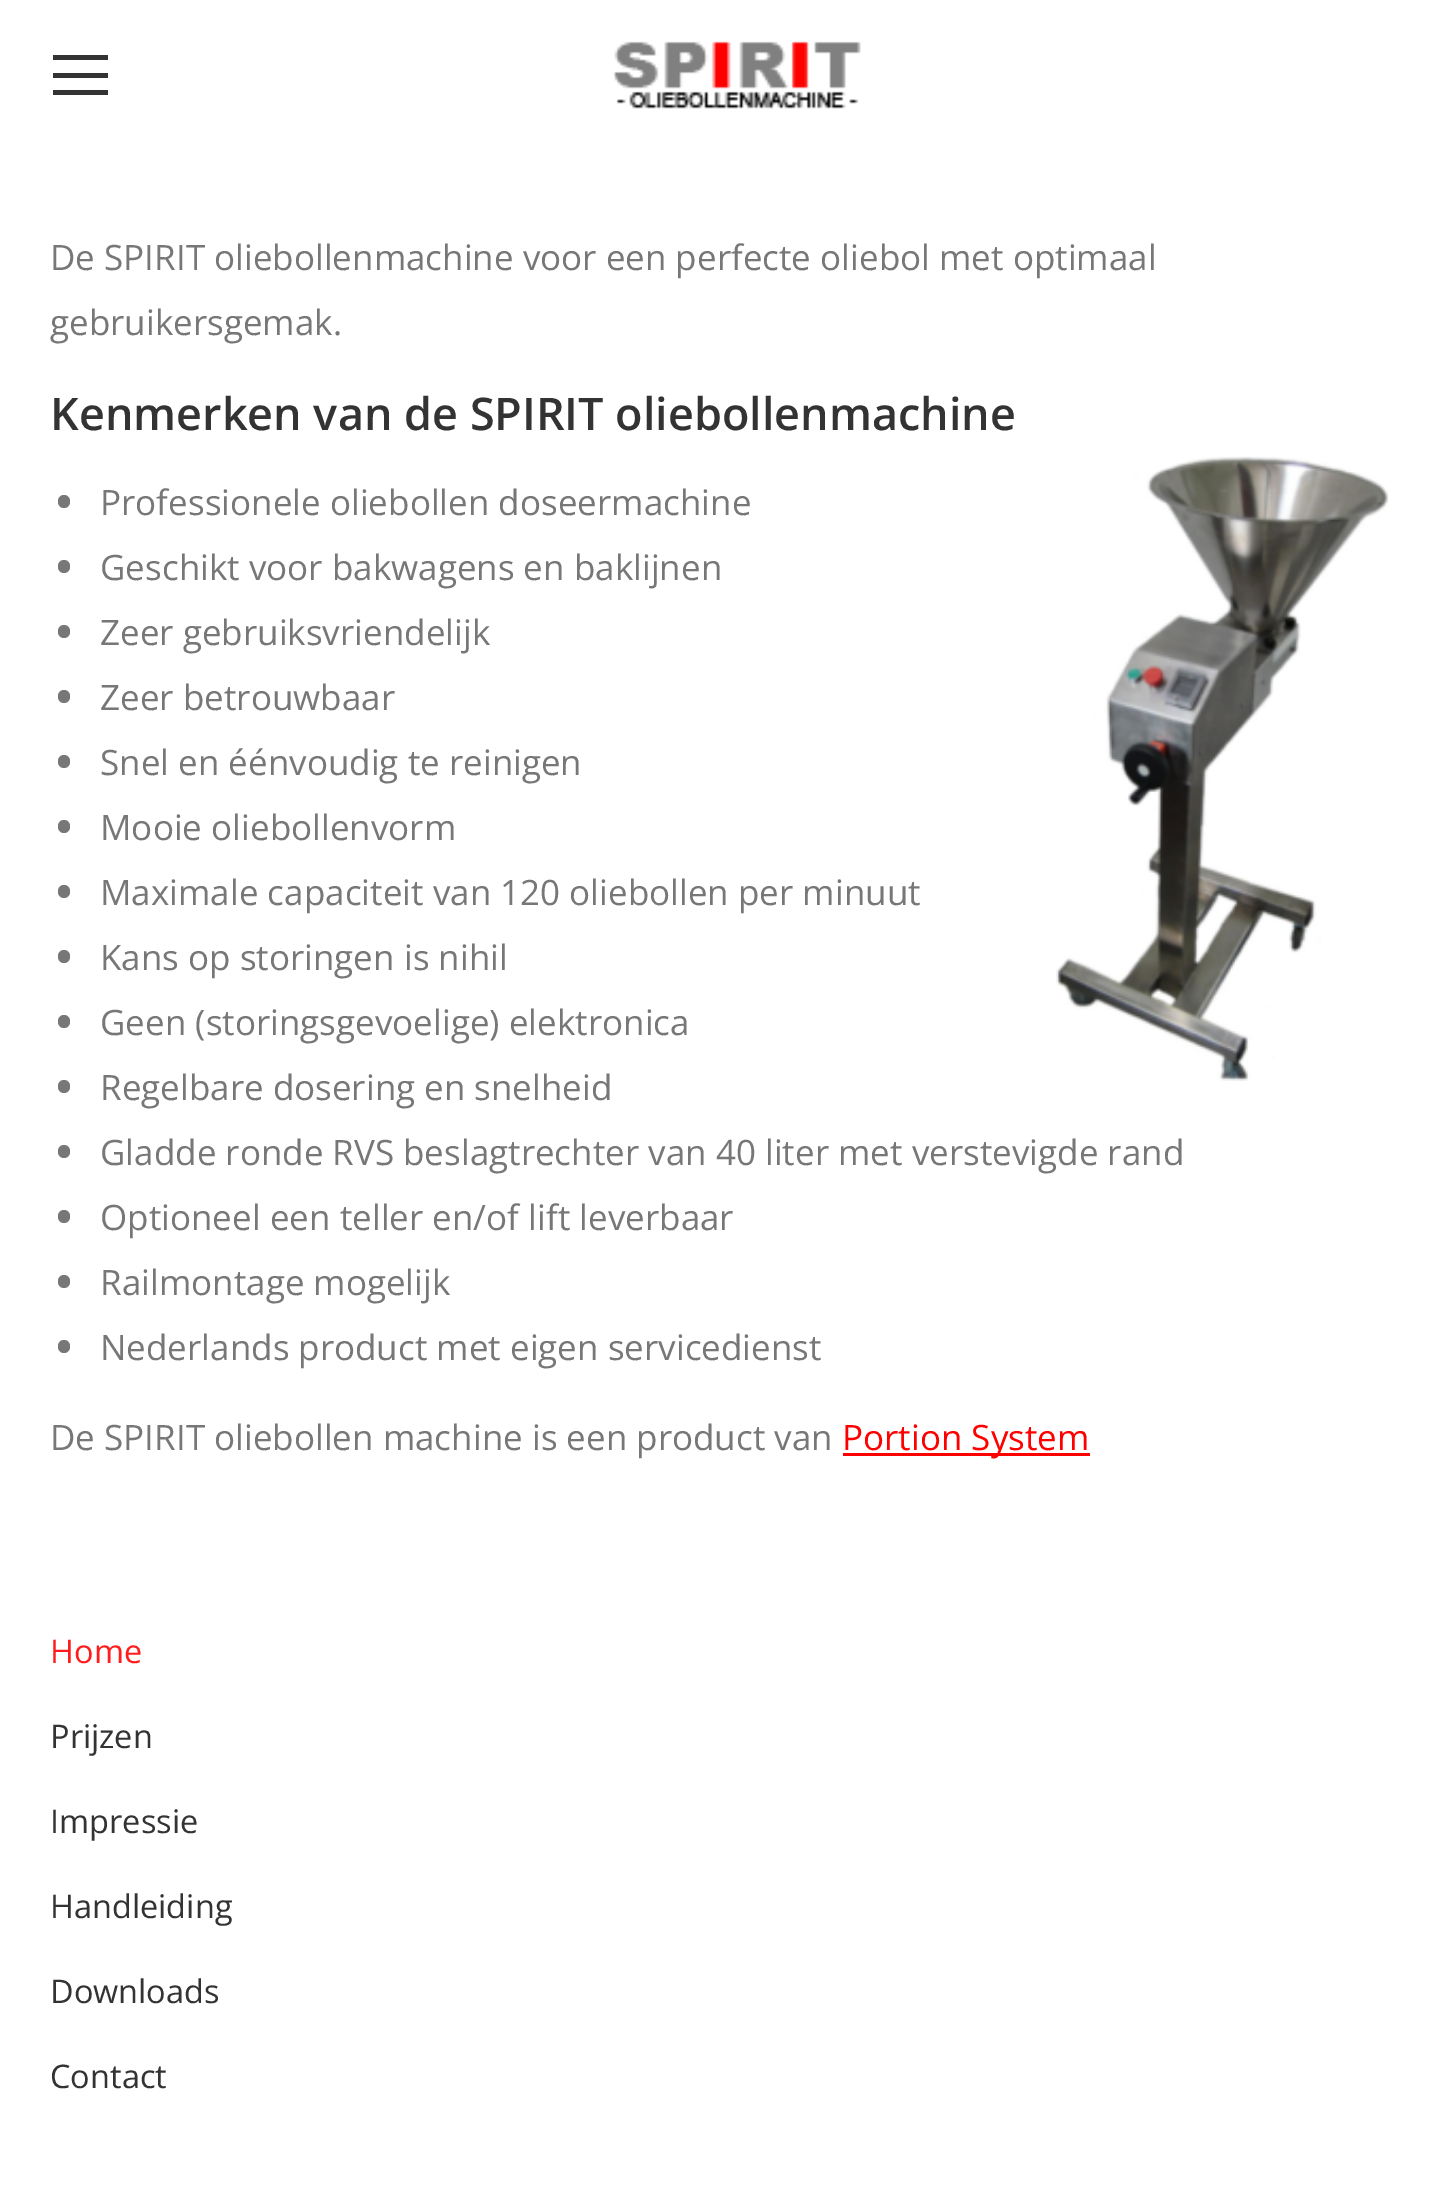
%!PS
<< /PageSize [1450 2204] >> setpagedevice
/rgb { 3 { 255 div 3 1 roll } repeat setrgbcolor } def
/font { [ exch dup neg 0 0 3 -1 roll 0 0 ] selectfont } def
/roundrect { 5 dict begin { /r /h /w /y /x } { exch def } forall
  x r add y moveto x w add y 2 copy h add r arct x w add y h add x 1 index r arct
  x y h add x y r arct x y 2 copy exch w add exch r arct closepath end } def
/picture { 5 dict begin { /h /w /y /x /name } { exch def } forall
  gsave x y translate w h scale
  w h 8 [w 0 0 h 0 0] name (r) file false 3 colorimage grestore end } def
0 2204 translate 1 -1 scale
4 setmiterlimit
255 255 255 rgb
0 0 1450 2204 rectfill
[
  [53 55 55 5 51 51 51]
  [53 73 55 5 51 51 51]
  [53 90 55 5 51 51 51]
] { aload pop rgb rectfill } forall
(img/1.rgb) 612 41 249 68 picture
(img/2.rgb) 1056 456 333 625 picture
119 119 119 rgb
58 495 12 13 6 roundrect fill
58 560 12 13 6 roundrect fill
58 625 12 13 6 roundrect fill
58 690 12 13 6 roundrect fill
58 755 12 13 6 roundrect fill
58 820 12 13 6 roundrect fill
58 885 12 13 6 roundrect fill
58 950 12 13 6 roundrect fill
58 1015 12 13 6 roundrect fill
58 1080 12 13 6 roundrect fill
58 1145 12 13 6 roundrect fill
58 1210 12 13 6 roundrect fill
58 1275 12 13 6 roundrect fill
58 1340 12 13 6 roundrect fill
255 0 0 rgb
843 1453 247 3 rectfill
/OpenSans-Regular 35 font
119 119 119 rgb
50 270 moveto (De SPIRIT oliebollenmachine voor een perfecte oliebol met optimaal) show
50 335 moveto (gebruikersgemak.) show
/OpenSans-SemiBold 45 font
51 51 51 rgb
50 430 moveto (Kenmerken van de SPIRIT oliebollenmachine) show
/OpenSans-Regular 35 font
119 119 119 rgb
[
  [(Professionele oliebollen doseermachine) 100 515]
  [(Geschikt voor bakwagens en baklijnen) 100 580]
  [(Zeer gebruiksvriendelijk) 100 645]
  [(Zeer betrouwbaar) 100 710]
  [(Snel en éénvoudig te reinigen) 100 775]
  [(Mooie oliebollenvorm) 100 840]
  [(Maximale capaciteit van 120 oliebollen per minuut) 100 905]
  [(Kans op storingen is nihil) 100 970]
  [(Geen \(storingsgevoelige\) elektronica) 100 1035]
  [(Regelbare dosering en snelheid) 100 1100]
  [(Gladde ronde RVS beslagtrechter van 40 liter met verstevigde rand) 100 1165]
  [(Optioneel een teller en/of lift leverbaar) 100 1230]
  [(Railmontage mogelijk) 100 1295]
  [(Nederlands product met eigen servicedienst) 100 1360]
  [(De SPIRIT oliebollen machine is een product van) 50 1450]
] { aload pop moveto show } forall
255 0 0 rgb
842 1450 moveto (Portion System) show
/OpenSans-Regular 32.5 font
255 28 28 rgb
50 1663 moveto (Home) show
51 51 51 rgb
[
  [(Prijzen) 50 1748]
  [(Impressie) 50 1833]
  [(Handleiding) 50 1918]
  [(Downloads) 50 2003]
  [(Contact) 50 2088]
] { aload pop moveto show } forall
showpage
